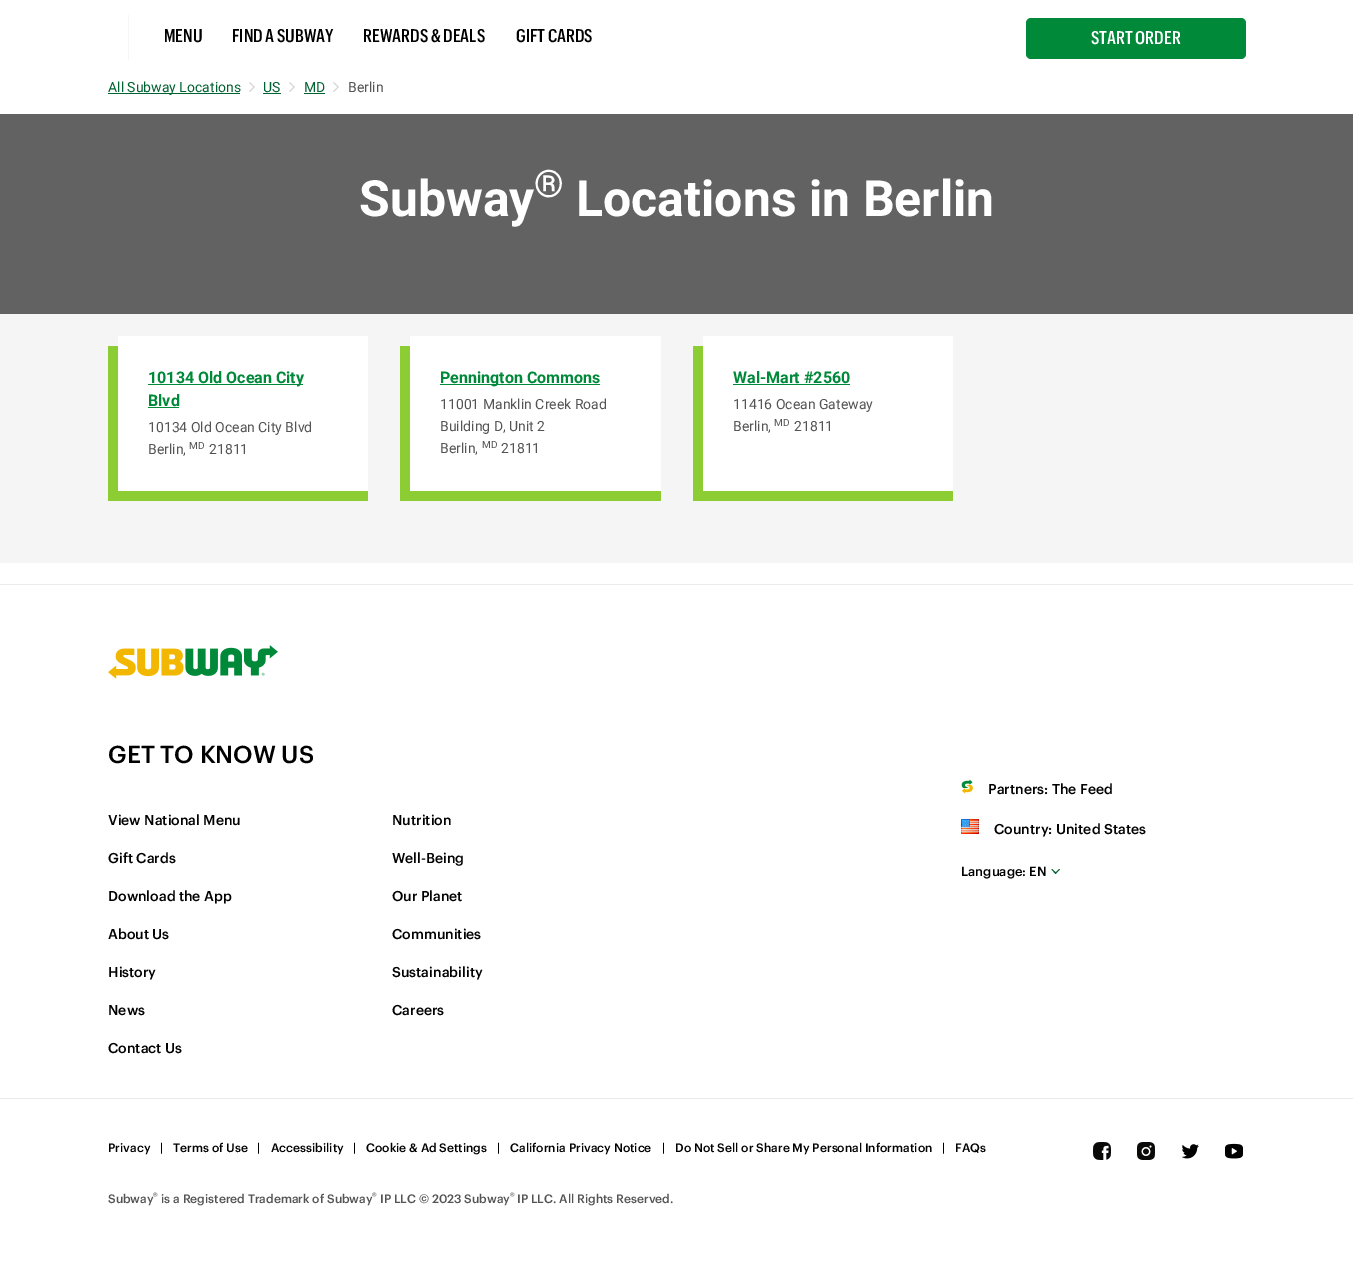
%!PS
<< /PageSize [1353 1269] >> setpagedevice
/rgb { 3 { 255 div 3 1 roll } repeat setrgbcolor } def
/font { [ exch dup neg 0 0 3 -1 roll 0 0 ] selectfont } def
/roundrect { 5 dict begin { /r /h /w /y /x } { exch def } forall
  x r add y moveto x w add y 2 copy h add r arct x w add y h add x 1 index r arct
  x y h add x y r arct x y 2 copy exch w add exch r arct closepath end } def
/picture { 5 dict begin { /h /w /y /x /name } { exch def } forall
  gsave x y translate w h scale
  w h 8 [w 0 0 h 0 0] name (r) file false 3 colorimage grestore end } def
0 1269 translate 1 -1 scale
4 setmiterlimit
255 255 255 rgb
0 0 1353 1269 rectfill
244 245 244 rgb
128 15 1 45 rectfill
0 137 56 rgb
1026 18 220 41 5 roundrect fill
0 98 48 rgb
108 93 132 1 rectfill
(img/1.rgb) 249 82 6 10 picture
263 93 18 1 rectfill
(img/1.rgb) 289 82 6 10 picture
304 93 21 1 rectfill
(img/1.rgb) 333 82 6 10 picture
[
  [0 314 1353 249 244 245 244]
  [0 114 1353 200 98 98 98]
  [108 346 260 155 139 205 50]
  [118 336 250 155 255 255 255]
  [148 384 155 1 0 137 56]
  [148 407 31 1 0 137 56]
  [400 346 261 155 139 205 50]
  [410 336 251 155 255 255 255]
  [440 384 160 1 0 137 56]
  [693 346 260 155 139 205 50]
  [703 336 250 155 255 255 255]
  [733 384 117 1 0 137 56]
  [0 584 1353 1 234 234 234]
] { aload pop rgb rectfill } forall
(img/2.rgb) 108 645 170 34 picture
(img/3.rgb) 961 779 12 15 picture
(img/4.rgb) 961 819 18 15 picture
0 98 48 rgb
1055 873 moveto 1059 869 lineto 1060 869.5 lineto 1055.5 874 lineto closepath fill
1051.5 869.5 moveto 1052 869 lineto 1056.5 873 lineto 1055.5 874 lineto closepath fill
234 234 234 rgb
0 1098 1353 1 rectfill
(img/5.rgb) 1093 1142 18 18 picture
(img/6.rgb) 1137 1142 18 18 picture
(img/7.rgb) 1181 1144 18 15 picture
(img/8.rgb) 1225 1143 18 16 picture
/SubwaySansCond-Medium 18 font
0 0 0 rgb
[
  [(MENU) 164 42]
  [(FIND A SUBWAY) 232 42]
  [(REWARDS & DEALS) 363 42]
  [(GIFT CARDS) 516 42]
] { aload pop moveto show } forall
255 255 255 rgb
1091 44 moveto (START ORDER) show
/Roboto-Regular 14 font
0 98 48 rgb
[
  [(All Subway Locations) 108 92]
  [(US) 263 92]
  [(MD) 304 92]
] { aload pop moveto show } forall
84 84 84 rgb
348 92 moveto (Berlin) show
/Roboto-Bold 50 font
255 255 255 rgb
359 216 moveto (Subway) show
/Roboto-Bold 38 font
534 197 moveto (®) show
/Roboto-Bold 50 font
576 216 moveto (Locations in Berlin) show
/Roboto-Bold 16 font
0 137 56 rgb
148 383 moveto (10134 Old Ocean City) show
148 406 moveto (Blvd) show
/Roboto-Regular 14 font
84 84 84 rgb
148 432 moveto (10134 Old Ocean City Blvd) show
148 454 moveto (Berlin,) show
/Roboto-Regular 10 font
189 449 moveto (MD) show
/Roboto-Regular 14 font
209 454 moveto (21811) show
/Roboto-Bold 16 font
0 137 56 rgb
440 383 moveto (Pennington Commons) show
/Roboto-Regular 14 font
84 84 84 rgb
[
  [(11001 Manklin Creek Road) 440 409]
  [(Building D, Unit 2) 440 431]
  [(Berlin,) 440 453]
] { aload pop moveto show } forall
/Roboto-Regular 10 font
482 448 moveto (MD) show
/Roboto-Regular 14 font
501 453 moveto (21811) show
/Roboto-Bold 16 font
0 137 56 rgb
733 383 moveto (Wal-Mart #2560) show
/Roboto-Regular 14 font
84 84 84 rgb
733 409 moveto (11416 Ocean Gateway) show
733 431 moveto (Berlin,) show
/Roboto-Regular 10 font
774 426 moveto (MD) show
/Roboto-Regular 14 font
794 431 moveto (21811) show
/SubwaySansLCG-Medium 24 font
0 0 0 rgb
108 763 moveto (GET TO KNOW US) show
/SubwaySansLCG-Medium 14 font
[
  [(View National Menu) 108 825]
  [(Gift Cards) 108 863]
  [(Download the App) 108 901]
  [(About Us) 108 939]
  [(History) 108 977]
  [(News) 108 1015]
  [(Contact Us) 108 1053]
  [(Nutrition) 392 825]
  [(Well-Being) 392 863]
  [(Our Planet) 392 901]
  [(Communities) 392 939]
  [(Sustainability) 392 977]
  [(Careers) 392 1015]
  [(Partners: The Feed) 988 794]
  [(Country: United States) 994 834]
] { aload pop moveto show } forall
/SubwaySansLCG-Medium 13 font
961 876 moveto (Language: EN) show
/SubwaySansLCG-Medium 12 font
[
  [(Privacy) 108 1152]
  [(|) 160 1152]
  [(Terms of Use) 173 1152]
  [(|) 257 1152]
  [(Accessibility) 271 1152]
  [(|) 353 1152]
  [(Cookie & Ad Settings) 366 1152]
  [(|) 497 1152]
  [(California Privacy Notice) 510 1152]
  [(|) 662 1152]
  [(Do Not Sell or Share My Personal Information) 675 1152]
  [(|) 942 1152]
  [(FAQs) 955 1152]
] { aload pop moveto show } forall
84 84 84 rgb
108 1203 moveto (Subway) show
/SubwaySansLCG-Medium 9 font
153 1199 moveto (®) show
/SubwaySansLCG-Medium 12 font
161 1203 moveto (is a Registered Trademark of Subway) show
/SubwaySansLCG-Medium 9 font
372 1199 moveto (®) show
/SubwaySansLCG-Medium 12 font
380 1203 moveto (IP LLC © 2023 Subway) show
/SubwaySansLCG-Medium 9 font
510 1199 moveto (®) show
/SubwaySansLCG-Medium 12 font
517 1203 moveto (IP LLC. All Rights Reserved.) show
showpage
